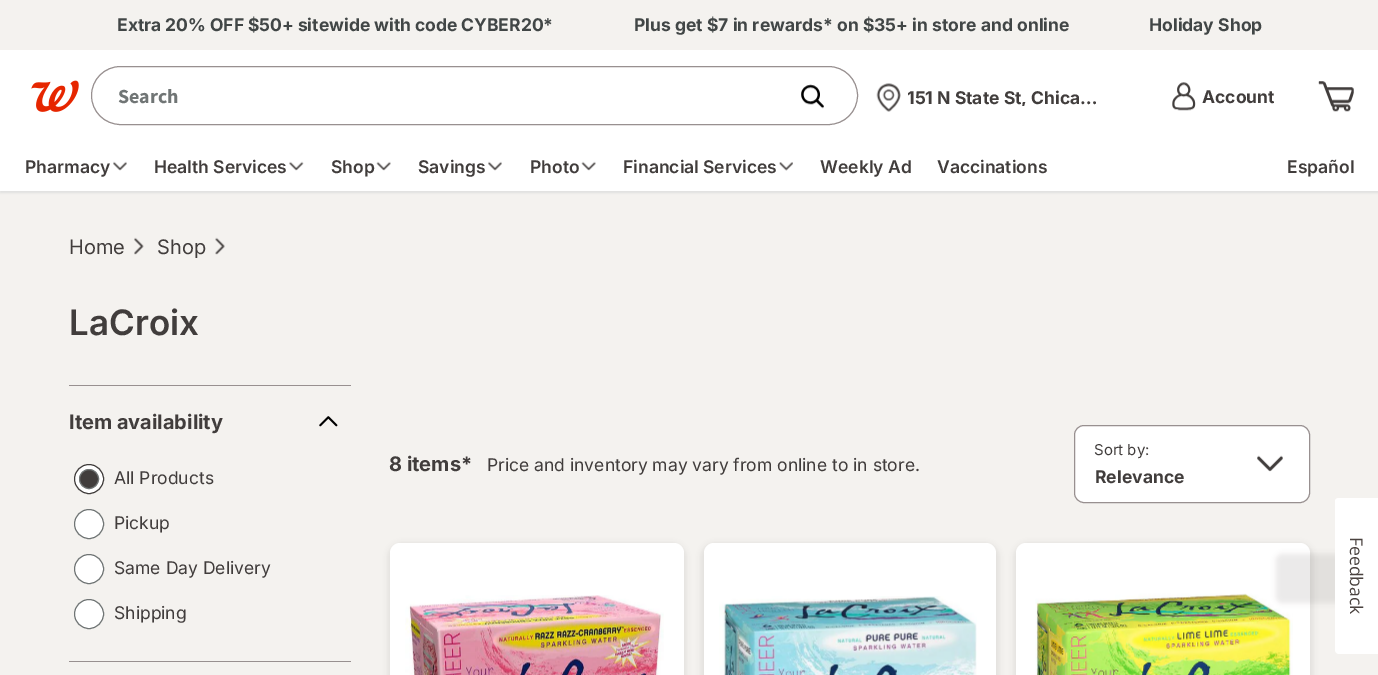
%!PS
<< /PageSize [1378 675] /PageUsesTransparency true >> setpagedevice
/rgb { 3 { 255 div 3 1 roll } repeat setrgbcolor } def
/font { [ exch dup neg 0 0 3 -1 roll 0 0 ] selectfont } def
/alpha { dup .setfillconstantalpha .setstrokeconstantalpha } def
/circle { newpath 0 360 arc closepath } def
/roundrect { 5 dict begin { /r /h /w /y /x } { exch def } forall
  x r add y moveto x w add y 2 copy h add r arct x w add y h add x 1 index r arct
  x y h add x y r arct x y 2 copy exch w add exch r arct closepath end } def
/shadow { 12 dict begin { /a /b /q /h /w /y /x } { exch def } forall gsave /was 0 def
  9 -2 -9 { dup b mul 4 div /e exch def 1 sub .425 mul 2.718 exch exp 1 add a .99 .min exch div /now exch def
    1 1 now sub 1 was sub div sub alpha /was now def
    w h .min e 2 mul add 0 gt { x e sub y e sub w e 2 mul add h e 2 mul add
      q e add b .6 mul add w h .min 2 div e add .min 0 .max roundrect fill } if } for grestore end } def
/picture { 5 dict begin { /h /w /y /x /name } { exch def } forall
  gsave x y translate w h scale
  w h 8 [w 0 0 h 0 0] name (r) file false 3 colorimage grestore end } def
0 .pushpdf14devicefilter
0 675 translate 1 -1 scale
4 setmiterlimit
255 255 255 rgb
0 0 1378 675 rectfill
244 242 239 rgb
0 0 1378 50 rectfill
(img/1.rgb) 31 80 48 32 picture
152 144 144 rgb
91.5 66.5 766 58 29 roundrect stroke
(img/2.rgb) 801 84 23 25 picture
(img/3.rgb) 876 83 25 29 picture
(img/4.rgb) 1172 82 24 29 picture
(img/5.rgb) 1318 81 36 31 picture
244 242 239 rgb
0 191 1378 484 rectfill
gsave
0 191 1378 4 rectclip
207 207 207 rgb
0 143 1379 50 0 1 0.5 shadow
grestore
(img/6.rgb) 113 161 14 10 picture
(img/7.rgb) 289 161 15 10 picture
(img/8.rgb) 376 161 15 10 picture
(img/6.rgb) 488 161 14 10 picture
(img/8.rgb) 581 161 15 10 picture
(img/9.rgb) 779 162 14 9 picture
(img/10.rgb) 134 237 10 18 picture
(img/11.rgb) 215 237 10 18 picture
152 144 144 rgb
69 385 282 1 rectfill
69 661 282 1 rectfill
(img/12.rgb) 319 416 19 11 picture
255 255 255 rgb
89 479 14.5 circle gsave fill grestore
65 61 60 rgb
stroke
89 479 9.5 circle gsave fill grestore
112 117 117 rgb
stroke
255 255 255 rgb
89 524 14.5 circle gsave fill grestore
112 117 117 rgb
stroke
255 255 255 rgb
89 569 14.5 circle gsave fill grestore
112 117 117 rgb
stroke
255 255 255 rgb
89 614 14.5 circle gsave fill grestore
112 117 117 rgb
stroke
255 255 255 rgb
1074.5 425.5 235 77 9.5 roundrect gsave fill grestore
152 144 144 rgb
stroke
(img/13.rgb) 1257 455 26 17 picture
65 61 60 rgb
388 543 298 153 13 2.5 0.1 shadow
255 255 255 rgb
390 543 294 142 10 roundrect fill
(img/14.rgb) 405 595 259 80 picture
65 61 60 rgb
701 543 298 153 13 2.5 0.1 shadow
255 255 255 rgb
704 543 292 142 10 roundrect fill
(img/15.rgb) 719 596 258 79 picture
65 61 60 rgb
1014 543 299 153 13 2.5 0.1 shadow
255 255 255 rgb
1016 543 294 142 10 roundrect fill
(img/16.rgb) 1035 593 258 82 picture
65 61 60 rgb
1276 554 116 49 6 2.5 0.1 shadow
255 255 255 rgb
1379 498 moveto 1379 654 lineto 1339 654 lineto 1337 654 1335 652 1335 650 curveto 1335 501 lineto 1335 499 1337 498 1339 498 curveto closepath fill
/Inter-Bold 17.5 font
65 70 70 rgb
117 31 moveto -0.25 0 32 (Extra 20% OFF $50+ sitewide with code CYBER20*) widthshow
634 31 moveto (Plus get $7 in rewards* on $35+ in store and online) show
1149 31 moveto (Holiday Shop) show
/SourceSansPro-Bold 20 font
112 117 117 rgb
118 103 moveto (Search) show
gsave
908 88 197 18 rectclip
/Inter-Bold 17.5 font
65 61 60 rgb
907 104 moveto (151 N State St, Chica…) show
grestore
/Inter-Bold 17.5 font
65 61 60 rgb
1202 103 moveto (Account) show
/Inter-SemiBold 17.5 font
[
  [(Pharmacy) 25 173]
  [(Health Services) 154 173]
  [(Shop) 331 173]
  [(Savings) 418 173]
  [(Photo) 530 173]
  [(Financial Services) 623 173]
  [(Weekly Ad) 820 173]
  [(Vaccinations) 937 173]
  [(Español) 1287 173]
] { aload pop moveto show } forall
/Inter-Regular 20 font
69 254 moveto (Home) show
157 254 moveto (Shop) show
/Inter-SemiBold 35 font
69 335 moveto (LaCroix) show
/Inter-Bold 20 font
69 429 moveto (Item availability) show
/Inter-Regular 17.5 font
[
  [(All Products) 114 484]
  [(Pickup) 114 529]
  [(Same Day Delivery) 114 574]
  [(Shipping) 114 619]
] { aload pop moveto show } forall
/Inter-Bold 20 font
389 471 moveto (8 items*) show
/Inter-Regular 17.5 font
487 471 moveto (Price and inventory may vary from online to in store.) show
/Inter-Regular 15 font
1094 455 moveto (Sort by:) show
/Inter-Bold 17.5 font
1095 483 moveto (Relevance) show
/OpenSans-Regular 17.5 font
74 66 63 rgb
gsave 1350 537 translate 90 rotate 0 0 moveto (Feedback) show grestore
.poppdf14devicefilter showpage
